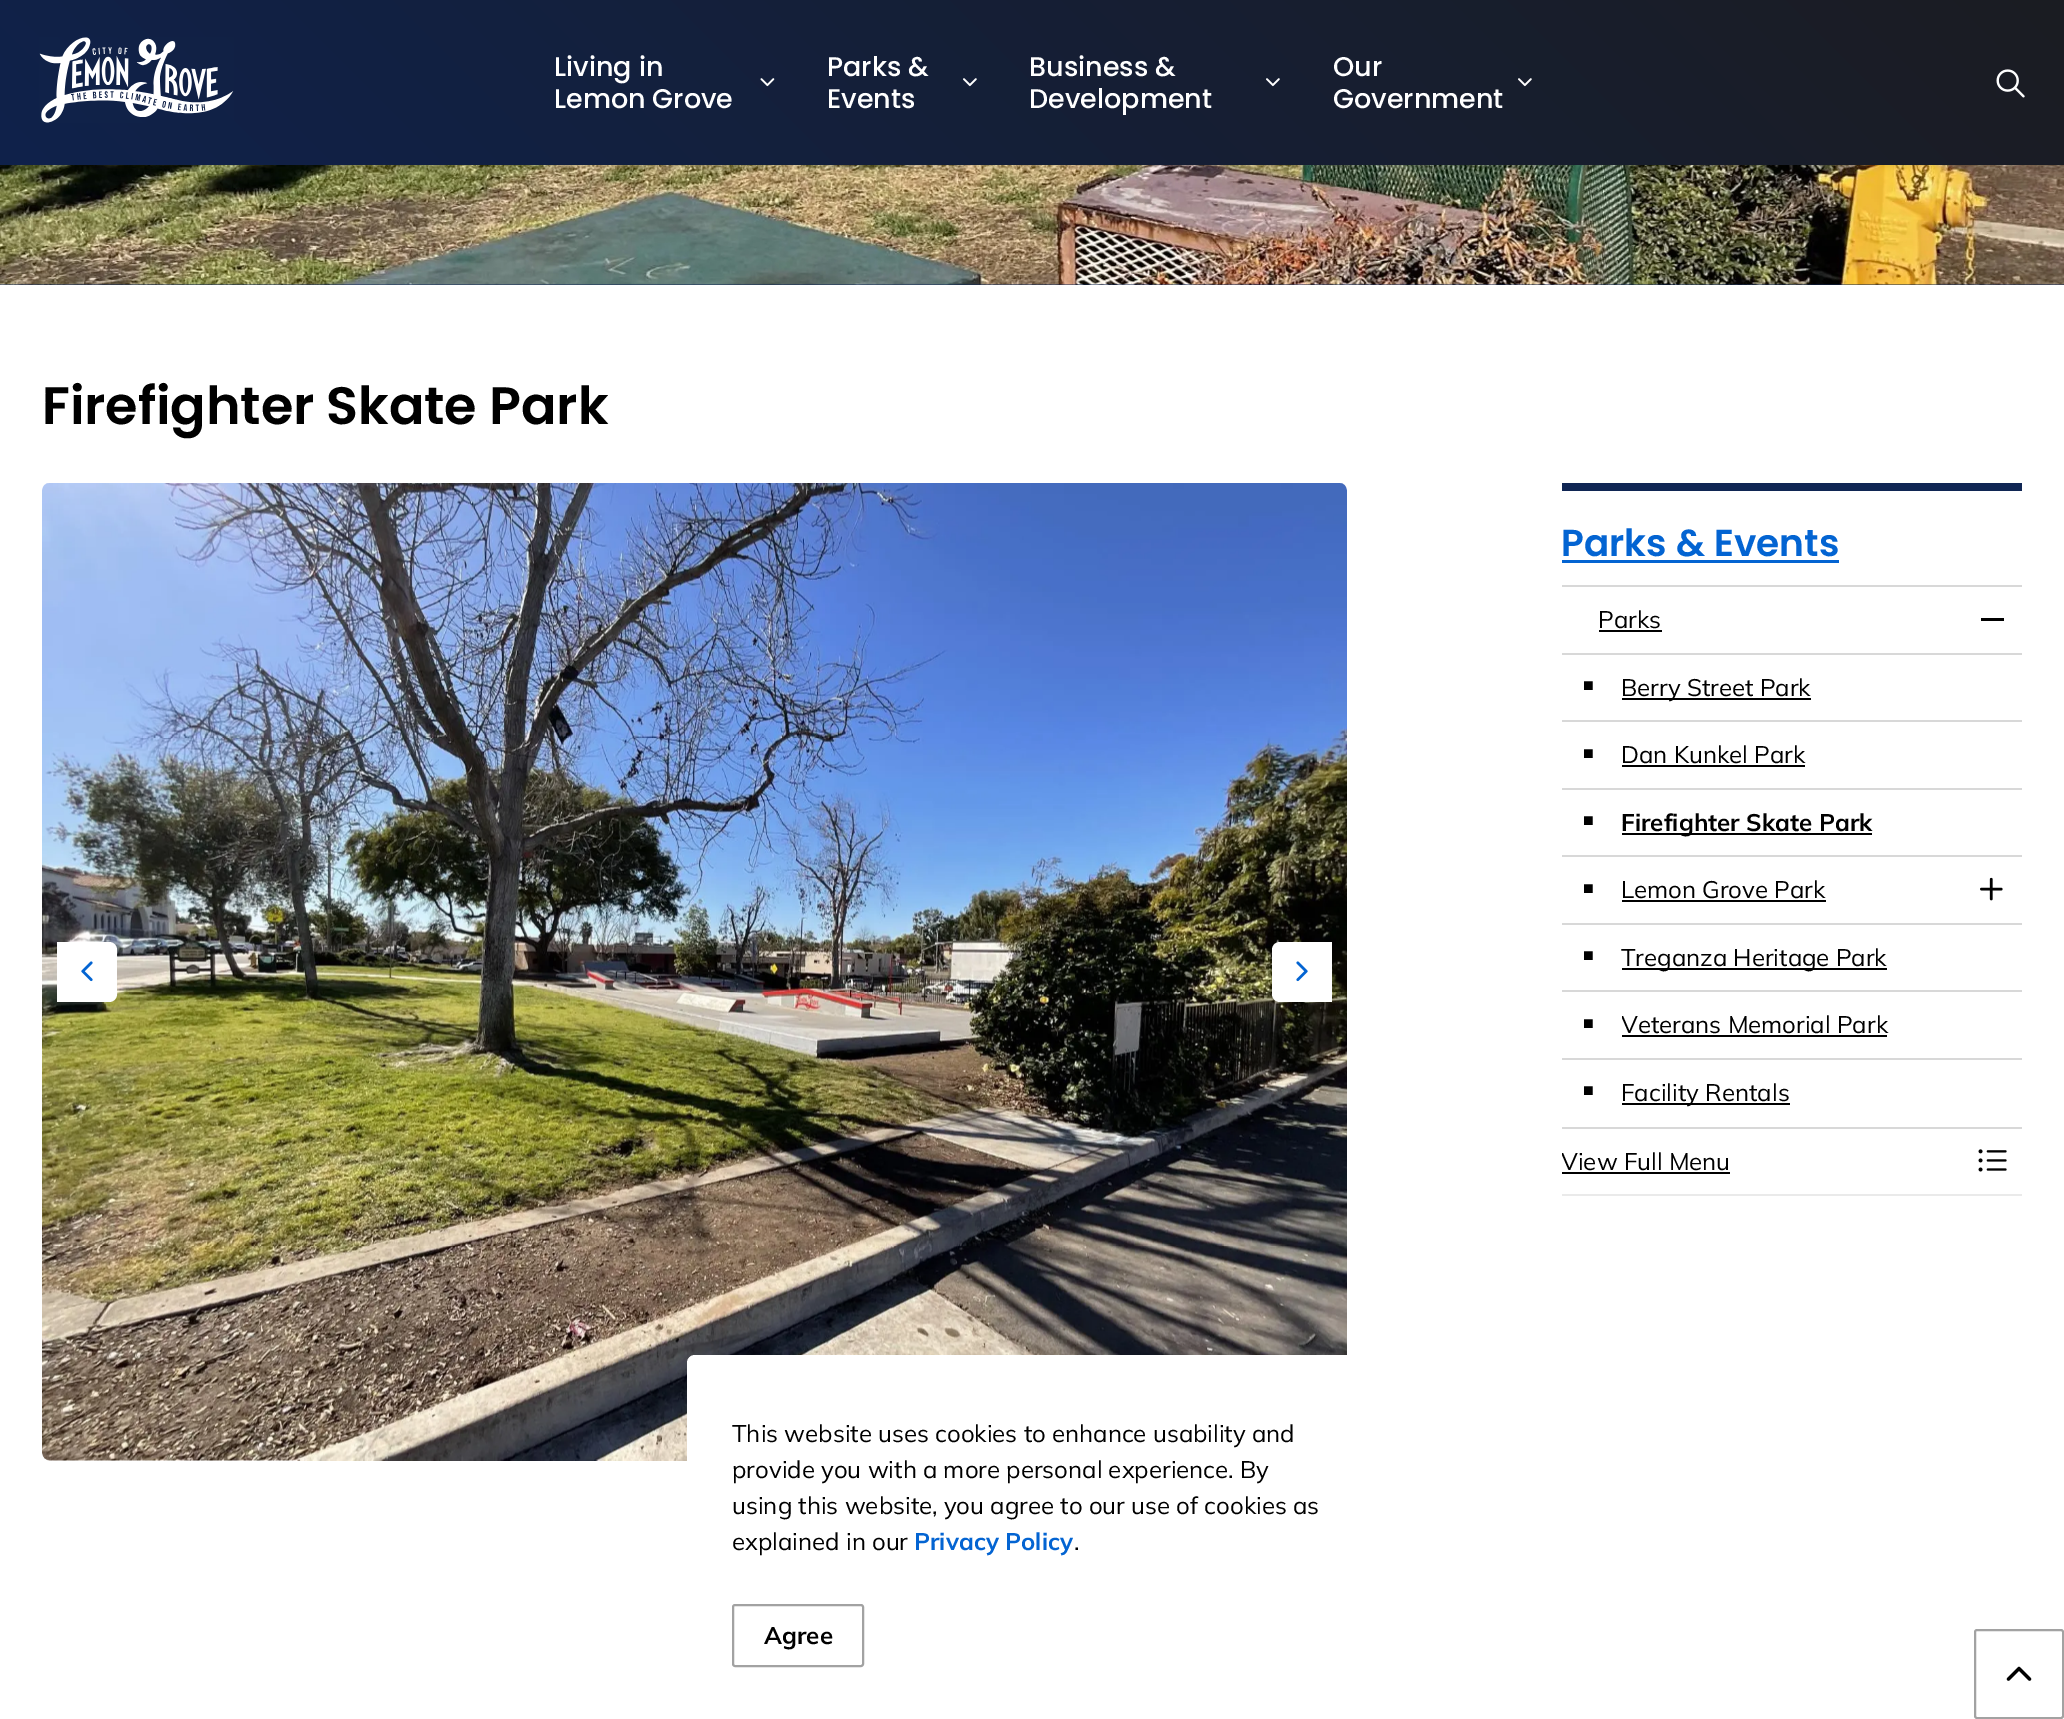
%!PS
<< /PageSize [2064 1719] /PageUsesTransparency true >> setpagedevice
/rgb { 3 { 255 div 3 1 roll } repeat setrgbcolor } def
/font { [ exch dup neg 0 0 3 -1 roll 0 0 ] selectfont } def
/alpha { dup .setfillconstantalpha .setstrokeconstantalpha } def
/roundrect { 5 dict begin { /r /h /w /y /x } { exch def } forall
  x r add y moveto x w add y 2 copy h add r arct x w add y h add x 1 index r arct
  x y h add x y r arct x y 2 copy exch w add exch r arct closepath end } def
/shadow { 12 dict begin { /a /b /q /h /w /y /x } { exch def } forall gsave /was 0 def
  9 -2 -9 { dup b mul 4 div /e exch def 1 sub .425 mul 2.718 exch exp 1 add a .99 .min exch div /now exch def
    1 1 now sub 1 was sub div sub alpha /was now def
    w h .min e 2 mul add 0 gt { x e sub y e sub w e 2 mul add h e 2 mul add
      q e add b .6 mul add w h .min 2 div e add .min 0 .max roundrect fill } if } for grestore end } def
/picture { 5 dict begin { /h /w /y /x /name } { exch def } forall
  gsave x y translate w h scale
  w h 8 [w 0 0 h 0 0] name (r) file false 3 colorimage grestore end } def
0 .pushpdf14devicefilter
0 1719 translate 1 -1 scale
4 setmiterlimit
255 255 255 rgb
0 0 2064 1719 rectfill
16 38 84 rgb
0 284 2064 1 rectfill
(img/7.rgb) 0 165 2064 120 picture
0 0 0 rgb
0 3 2064 165 0 1.5 0.05 shadow
gsave 0 0 moveto 2064 0 lineto 2064 165 lineto 0 165 lineto closepath clip newpath
<< /ShadingType 2 /ColorSpace /DeviceRGB /Coords [475 640 1589 -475] /Extend [true true] /Function << /FunctionType 2 /Domain [0 1] /C0 [0.059 0.133 0.294] /C1 [0.106 0.11 0.133] /N 1 >> >> shfill grestore
(img/1.rgb) 39 37 195 86 picture
(img/2.rgb) 760 78 15 9 picture
(img/3.rgb) 963 78 14 9 picture
(img/4.rgb) 1266 78 14 9 picture
(img/5.rgb) 1518 78 14 9 picture
(img/6.rgb) 1996 69 29 29 picture
(img/8.rgb) 42 483 1305 978 picture
255 255 255 rgb
57 942 moveto 109 942 lineto 113.5 942 117 945.5 117 950 curveto 117 994 lineto 117 998.5 113.5 1002 109 1002 curveto 57 1002 lineto closepath fill
(img/9.rgb) 81 961 12 21 picture
1280 942 moveto 1332 942 lineto 1332 1002 lineto 1280 1002 lineto 1275.5 1002 1272 998.5 1272 994 curveto 1272 950 lineto 1272 945.5 1275.5 942 1280 942 curveto closepath fill
(img/10.rgb) 1296 961 12 21 picture
[
  [1562 483 460 8 16 38 84]
  [1562 560 277 3 3 100 210]
  [1562 585 460 2 216 216 216]
  [1599 630 63 2 0 0 0]
  [1981 618 23 3 0 0 0]
  [1562 653 460 2 216 216 216]
  [1622 698 189 2 0 0 0]
  [1562 720 460 2 216 216 216]
  [1622 765 183 2 0 0 0]
  [1562 788 460 2 216 216 216]
  [1622 833 250 2 0 0 0]
  [1562 855 460 2 216 216 216]
  [1622 900 204 2 0 0 0]
] { aload pop rgb rectfill } forall
(img/11.rgb) 1980 877 23 24 picture
[
  [1562 923 460 2 216 216 216]
  [1622 968 265 2 0 0 0]
  [1562 990 460 2 216 216 216]
  [1622 1035 265 2 0 0 0]
  [1562 1058 460 2 216 216 216]
  [1622 1103 168 2 0 0 0]
  [1562 1127 460 2 216 216 216]
  [1562 1172 168 2 0 0 0]
] { aload pop rgb rectfill } forall
(img/12.rgb) 1978 1149 29 23 picture
234 234 234 rgb
1562 1194 460 2 rectfill
162 162 162 rgb
2 setlinewidth
1975 1630 88 88 2 roundrect stroke
(img/13.rgb) 2006 1666 26 15 picture
255 255 255 rgb
687 1355 690 364 8 roundrect fill
162 162 162 rgb
733 1605 130 61 2 roundrect stroke
/Poppins-Medium 27 font
255 255 255 rgb
[
  [(Living in) 554 76]
  [(Lemon Grove) 554 108]
  [(Parks &) 827 76]
  [(Events) 827 108]
  [(Business &) 1029 76]
  [(Development) 1029 108]
  [(Our) 1333 76]
  [(Government) 1333 108]
] { aload pop moveto show } forall
/Poppins-SemiBold 52.5 font
0 0 0 rgb
42 424 moveto -0.1 0 (Firefighter Skate Park) ashow
/Poppins-SemiBold 37.5 font
3 100 210 rgb
1561 556 moveto (Parks & Events) show
/Mulish-Regular 24 font
0 0 0 rgb
1598 628 moveto (Parks) show
/LiberationSans-Regular 18 font
1583 691 moveto (■) show
/Mulish-Regular 24 font
1621 696 moveto (Berry Street Park) show
/LiberationSans-Regular 18 font
1583 759 moveto (■) show
/Mulish-Regular 24 font
1621 763 moveto (Dan Kunkel Park) show
/LiberationSans-Regular 18 font
1583 826 moveto (■) show
/Mulish-Bold 24 font
1621 831 moveto (Firefighter Skate Park) show
/LiberationSans-Regular 18 font
1583 894 moveto (■) show
/Mulish-Regular 24 font
1621 898 moveto (Lemon Grove Park) show
/LiberationSans-Regular 18 font
1583 961 moveto (■) show
/Mulish-Regular 24 font
1621 966 moveto (Treganza Heritage Park) show
/LiberationSans-Regular 18 font
1583 1029 moveto (■) show
gsave
1622 992 400 66 rectclip
/Mulish-Regular 24 font
1621 1033 moveto (Veterans Memorial Park) show
grestore
1583 1096 moveto (■) show
/Mulish-Regular 24 font
1621 1101 moveto (Facility Rentals) show
gsave
1562 1128 400 66 rectclip
1561 1170 moveto (View Full Menu) show
grestore
[
  [(This website uses cookies to enhance usability and) 732 1442]
  [(provide you with a more personal experience. By) 732 1478]
  [(using this website, you agree to our use of cookies as) 732 1514]
  [(explained in our) 732 1550]
] { aload pop moveto show } forall
/Mulish-Bold 24 font
3 100 210 rgb
914 1550 moveto (Privacy Policy) show
/Mulish-Regular 24 font
0 0 0 rgb
1074 1550 moveto (.) show
/Mulish-Bold 24 font
764 1644 moveto (Agree) show
.poppdf14devicefilter showpage
